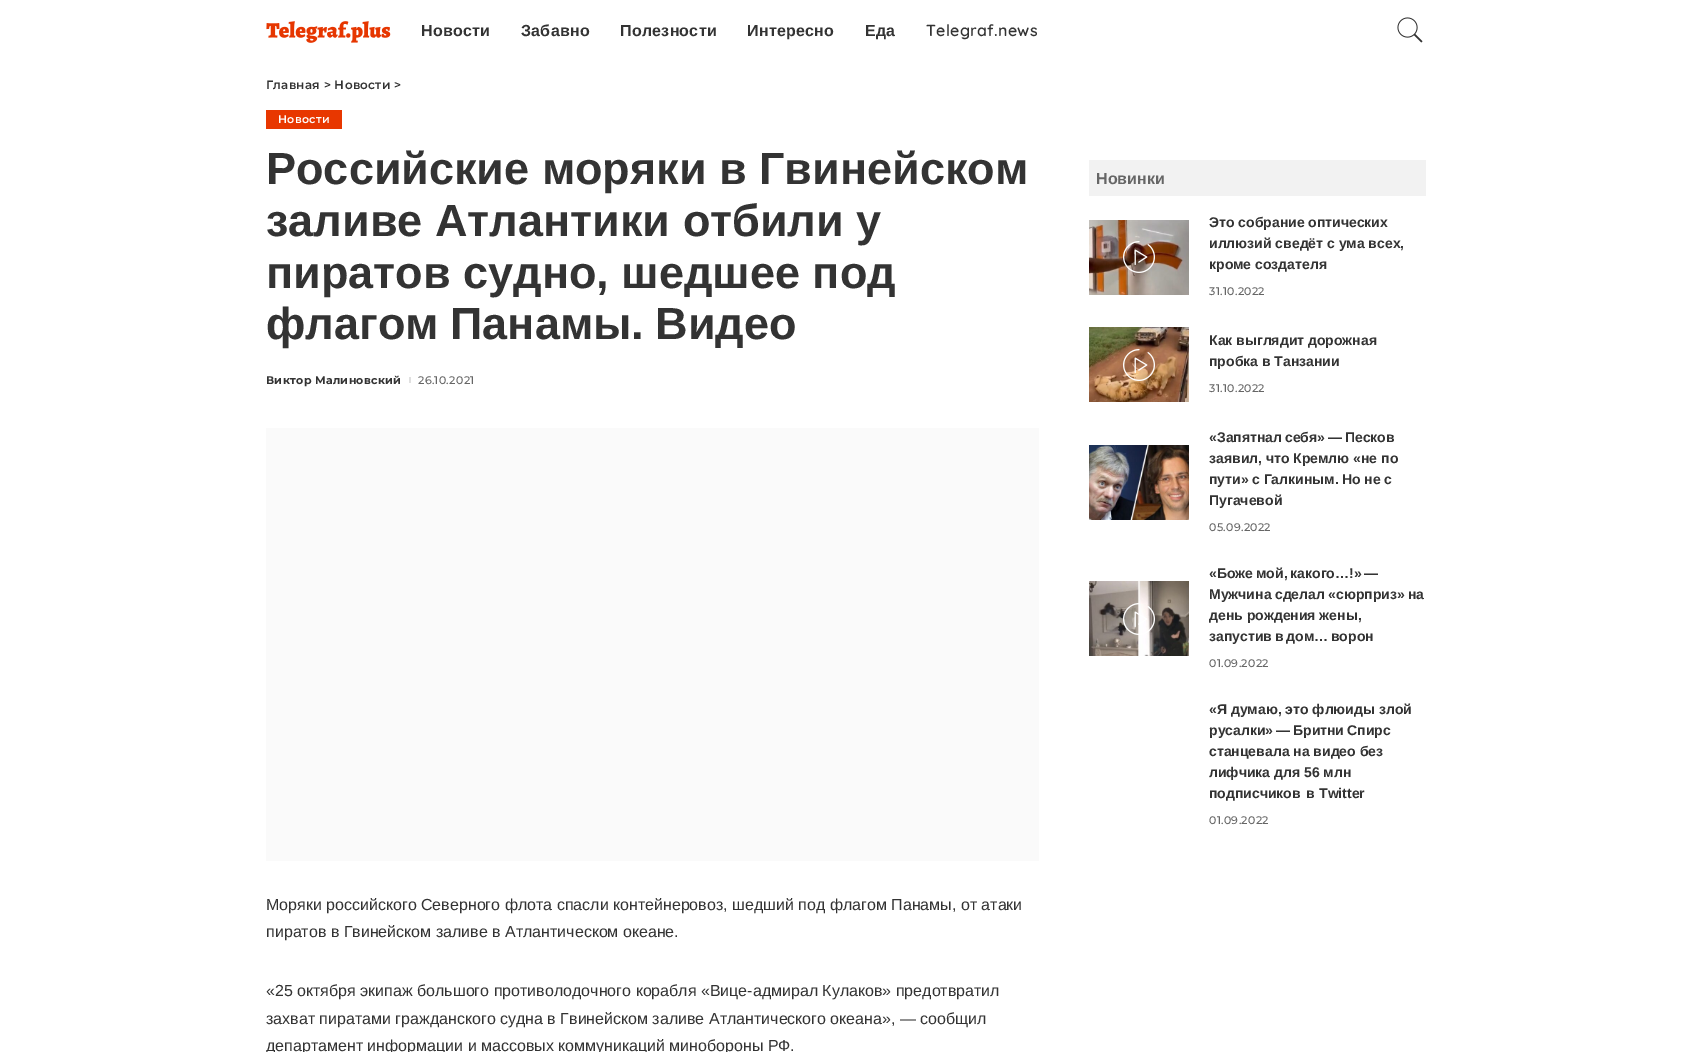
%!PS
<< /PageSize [1692 1052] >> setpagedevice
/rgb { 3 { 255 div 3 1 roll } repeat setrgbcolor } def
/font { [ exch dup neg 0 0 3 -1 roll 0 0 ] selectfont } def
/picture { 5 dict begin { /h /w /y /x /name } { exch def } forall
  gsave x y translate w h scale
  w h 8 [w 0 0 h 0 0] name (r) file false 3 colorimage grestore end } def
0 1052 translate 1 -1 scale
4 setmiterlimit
255 255 255 rgb
0 0 1692 1052 rectfill
(img/1.rgb) 266 21 125 22 picture
(img/2.rgb) 1397 17 26 26 picture
[
  [266 110 76 19 232 55 0]
  [409 377 2 6 224 224 224]
  [266 428 773 433 250 250 250]
  [1089 160 337 36 242 242 242]
] { aload pop rgb rectfill } forall
(img/3.rgb) 1089 220 100 75 picture
(img/4.rgb) 1123 241 32 32 picture
(img/5.rgb) 1089 327 100 75 picture
(img/6.rgb) 1123 349 32 32 picture
(img/7.rgb) 1089 445 100 75 picture
(img/8.rgb) 1089 581 100 75 picture
(img/9.rgb) 1123 603 32 32 picture
/LiberationSans-Bold 16 font
51 51 51 rgb
421 36 moveto 0.25 0 (Новости) ashow
521 36 moveto 0.25 0 (Забавно) ashow
620 36 moveto 0.25 0 (Полезности) ashow
747 36 moveto 0.25 0 (Интересно) ashow
865 36 moveto 0.25 0 (Еда) ashow
/Quicksand-SemiBold 16 font
926 36 moveto 0.25 0 (Telegraf.news) ashow
/Montserrat-SemiBold 12 font
266 89 moveto 0.25 0 (Главная > Новости >) ashow
/Montserrat-SemiBold 11 font
255 255 255 rgb
278 123 moveto 0.3 0 (Новости) ashow
/LiberationSans-Bold 45 font
51 51 51 rgb
[
  [(Российские моряки в Гвинейском) 266 184]
  [(заливе Атлантики отбили у) 266 236]
  [(пиратов судно, шедшее под) 266 288]
] { aload pop moveto show } forall
266 339 moveto -1 0 32 (флагом Панамы. Видео) widthshow
/Montserrat-Bold 11 font
266 384 moveto 0.3 0 (Виктор Малиновский) ashow
/Montserrat-Medium 11 font
102 102 102 rgb
418 384 moveto 0.3 0 (26.10.2021) ashow
/LiberationSans-Regular 16 font
51 51 51 rgb
[
  [(Моряки российского Северного флота спасли контейнеровоз, шедший под флагом Панамы, от атаки) 266 910]
  [(пиратов в Гвинейском заливе в Атлантическом океане.) 266 937]
  [(«25 октября экипаж большого противолодочного корабля «Вице-адмирал Кулаков» предотвратил) 266 996]
  [(захват пиратами гражданского судна в Гвинейском заливе Атлантического океана», — сообщил) 266 1024]
  [(департамент информации и массовых коммуникаций минобороны РФ.) 266 1051]
] { aload pop moveto show } forall
/LiberationSans-Bold 16 font
102 102 102 rgb
1096 184 moveto (Новинки) show
/LiberationSans-Bold 14 font
51 51 51 rgb
[
  [(Это собрание оптических) 1209 227]
  [(иллюзий сведёт с ума всех,) 1209 248]
  [(кроме создателя) 1209 269]
] { aload pop moveto show } forall
/Montserrat-Medium 11 font
102 102 102 rgb
1209 295 moveto 0.3 0 (31.10.2022) ashow
/LiberationSans-Bold 14 font
51 51 51 rgb
1209 345 moveto (Как выглядит дорожная) show
1209 366 moveto (пробка в Танзании) show
/Montserrat-Medium 11 font
102 102 102 rgb
1209 392 moveto 0.3 0 (31.10.2022) ashow
/LiberationSans-Bold 14 font
51 51 51 rgb
1209 442 moveto -1 0 32 («Запятнал себя» — Песков) widthshow
1209 463 moveto (заявил, что Кремлю «не по) show
1209 484 moveto -0.25 0 32 (пути» с Галкиным. Но не с) widthshow
1209 505 moveto (Пугачевой) show
/Montserrat-Medium 11 font
102 102 102 rgb
1209 531 moveto 0.3 0 (05.09.2022) ashow
/LiberationSans-Bold 14 font
51 51 51 rgb
1209 578 moveto -1 0 32 («Боже мой, какого…!» —) widthshow
1209 599 moveto -0.5 0 32 (Мужчина сделал «сюрприз» на) widthshow
1209 620 moveto (день рождения жены,) show
1209 641 moveto -1 0 32 (запустив в дом… ворон) widthshow
/Montserrat-Medium 11 font
102 102 102 rgb
1209 667 moveto 0.3 0 (01.09.2022) ashow
/LiberationSans-Bold 14 font
51 51 51 rgb
1209 714 moveto («Я думаю, это флюиды злой) show
1209 735 moveto -1 0 32 (русалки» — Бритни Спирс) widthshow
1209 756 moveto (станцевала на видео без) show
1209 777 moveto (лифчика для 56 млн) show
1209 798 moveto 1 0 32 (подписчиков в Twitter) widthshow
/Montserrat-Medium 11 font
102 102 102 rgb
1209 824 moveto 0.3 0 (01.09.2022) ashow
showpage
